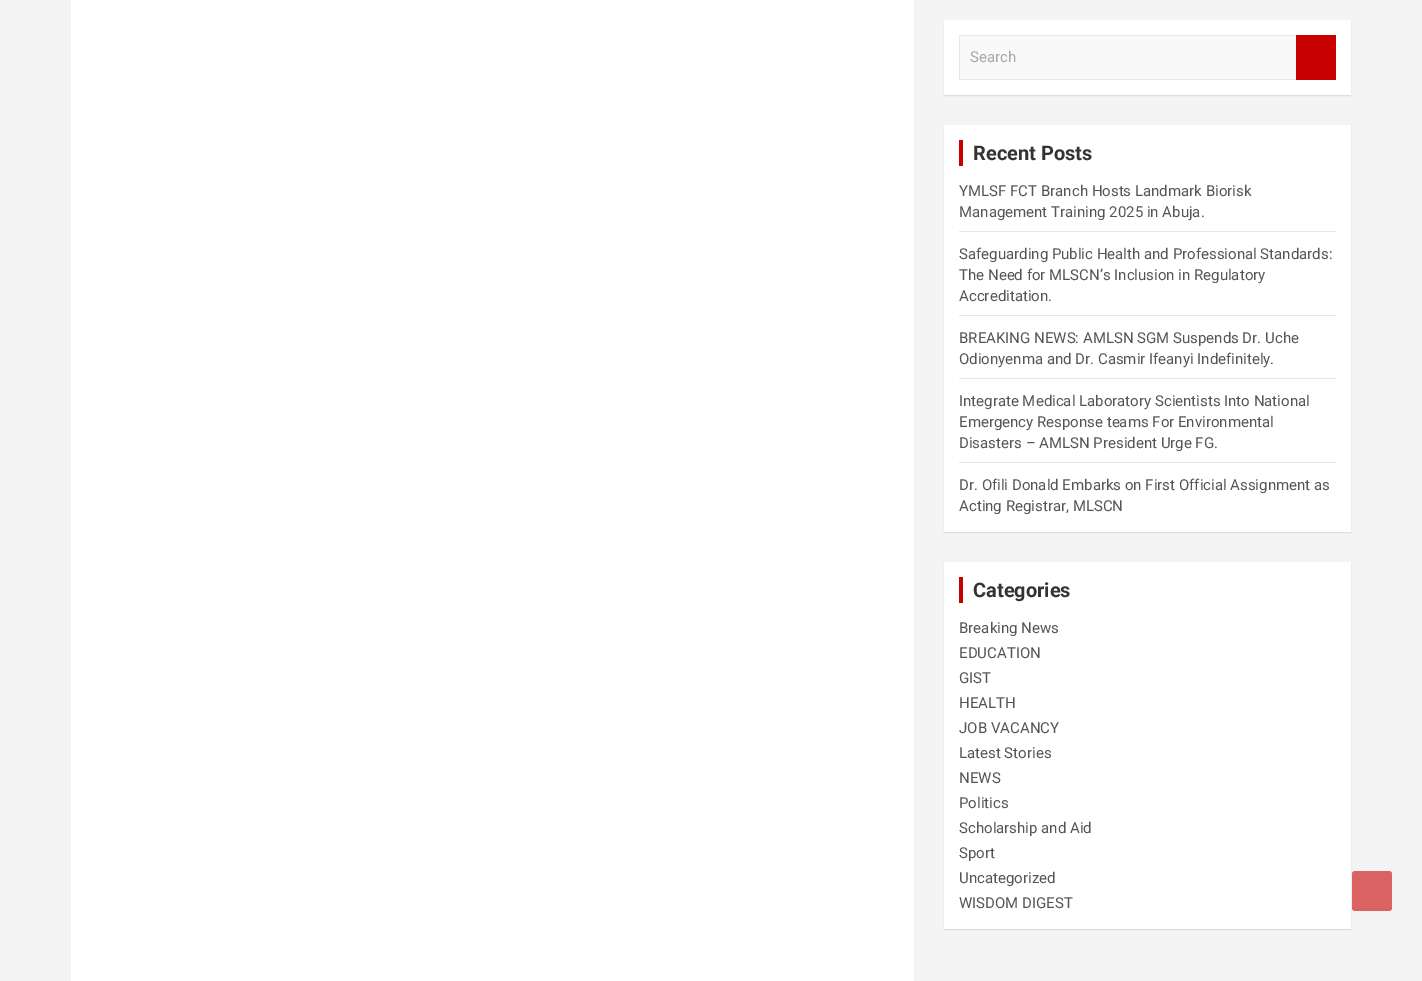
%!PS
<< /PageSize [1422 981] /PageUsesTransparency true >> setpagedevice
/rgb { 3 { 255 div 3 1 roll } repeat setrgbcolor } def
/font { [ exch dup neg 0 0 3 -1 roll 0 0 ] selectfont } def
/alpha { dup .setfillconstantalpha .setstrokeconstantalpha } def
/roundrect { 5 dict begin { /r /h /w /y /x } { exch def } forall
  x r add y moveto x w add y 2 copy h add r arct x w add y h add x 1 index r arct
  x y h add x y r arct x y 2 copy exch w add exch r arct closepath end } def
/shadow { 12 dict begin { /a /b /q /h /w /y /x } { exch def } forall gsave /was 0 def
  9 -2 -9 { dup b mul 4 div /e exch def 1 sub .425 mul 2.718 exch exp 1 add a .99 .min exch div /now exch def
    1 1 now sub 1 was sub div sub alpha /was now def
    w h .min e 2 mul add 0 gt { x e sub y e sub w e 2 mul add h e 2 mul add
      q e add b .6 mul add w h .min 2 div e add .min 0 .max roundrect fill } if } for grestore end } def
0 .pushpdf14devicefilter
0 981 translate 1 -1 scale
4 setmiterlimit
244 244 244 rgb
0 0 1422 981 rectfill
255 255 255 rgb
71 0 843 981 rectfill
0 0 0 rgb
944 21 407 75 0 0.5 0.1 shadow
255 255 255 rgb
944 20 407 75 rectfill
249 249 249 rgb
960 36 336 43 rectfill
232 232 232 rgb
959 35 moveto 1296 35 lineto 1296 36 lineto 960 36 lineto closepath fill
1296 80 moveto 959 80 lineto 960 79 lineto 1296 79 lineto closepath fill
0.09 alpha
0 0 0 rgb
959 80 moveto 959 35 lineto 960 36 lineto 960 79 lineto closepath fill
1 alpha
200 0 0 rgb
1296 35 40 45 rectfill
0 0 0 rgb
944 126 407 407 0 0.5 0.1 shadow
[
  [944 125 407 407 255 255 255]
  [959 140 4 26 200 0 0]
  [959 231 377 1 230 230 230]
  [959 315 377 1 230 230 230]
  [959 378 377 1 230 230 230]
  [959 462 377 1 230 230 230]
] { aload pop rgb rectfill } forall
0 0 0 rgb
944 563 407 367 0 0.5 0.1 shadow
255 255 255 rgb
944 562 407 367 rectfill
200 0 0 rgb
959 577 4 26 rectfill
218 98 98 rgb
1352 871 40 40 3 roundrect fill
/Roboto-Regular 15 font
167 167 167 rgb
970 62 moveto (Search) show
/Roboto-Bold 20 font
51 51 51 rgb
973 160 moveto (Recent Posts) show
/Roboto-Regular 15 font
85 85 85 rgb
[
  [(YMLSF FCT Branch Hosts Landmark Biorisk) 959 196]
  [(Management Training 2025 in Abuja.) 959 217]
  [(Safeguarding Public Health and Professional Standards:) 959 259]
  [(The Need for MLSCN’s Inclusion in Regulatory) 959 280]
  [(Accreditation.) 959 301]
  [(BREAKING NEWS: AMLSN SGM Suspends Dr. Uche) 959 343]
  [(Odionyenma and Dr. Casmir Ifeanyi Indefinitely.) 959 364]
  [(Integrate Medical Laboratory Scientists Into National) 959 406]
  [(Emergency Response teams For Environmental) 959 427]
  [(Disasters – AMLSN President Urge FG.) 959 448]
  [(Dr. Ofili Donald Embarks on First Official Assignment as) 959 490]
  [(Acting Registrar, MLSCN) 959 511]
] { aload pop moveto show } forall
/Roboto-Bold 20 font
51 51 51 rgb
973 597 moveto (Categories) show
/Roboto-Regular 15 font
85 85 85 rgb
[
  [(Breaking News) 959 633]
  [(EDUCATION) 959 658]
  [(GIST) 959 683]
  [(HEALTH) 959 708]
  [(JOB VACANCY) 959 733]
  [(Latest Stories) 959 758]
  [(NEWS) 959 783]
  [(Politics) 959 808]
  [(Scholarship and Aid) 959 833]
  [(Sport) 959 858]
  [(Uncategorized) 959 883]
  [(WISDOM DIGEST) 959 908]
] { aload pop moveto show } forall
.poppdf14devicefilter showpage
